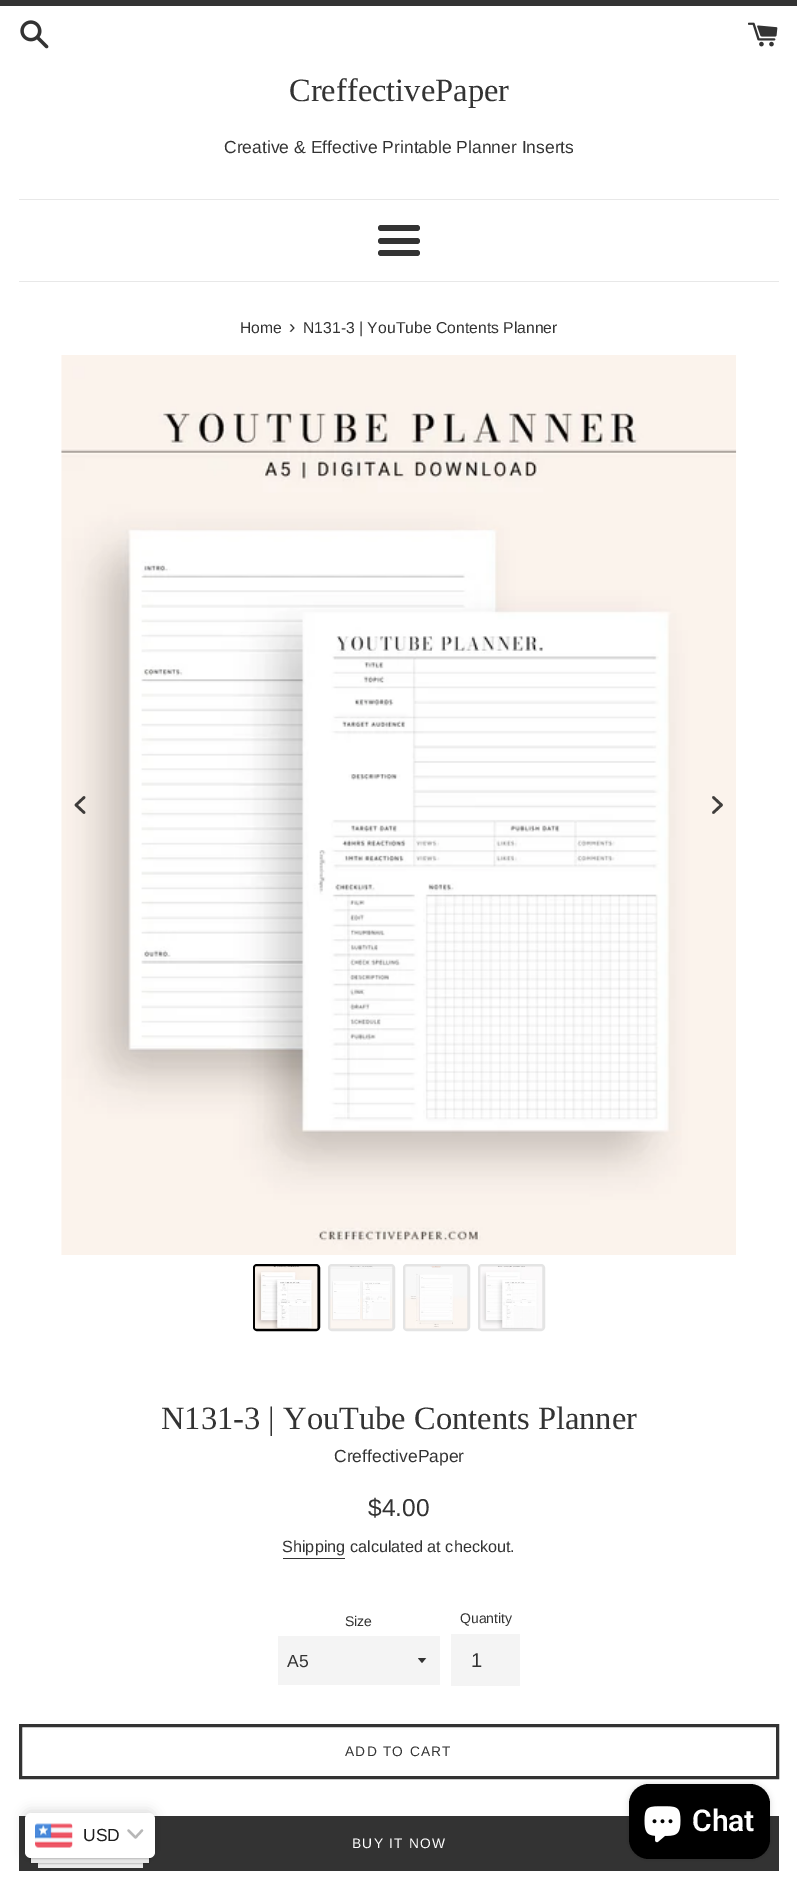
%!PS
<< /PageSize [797 1885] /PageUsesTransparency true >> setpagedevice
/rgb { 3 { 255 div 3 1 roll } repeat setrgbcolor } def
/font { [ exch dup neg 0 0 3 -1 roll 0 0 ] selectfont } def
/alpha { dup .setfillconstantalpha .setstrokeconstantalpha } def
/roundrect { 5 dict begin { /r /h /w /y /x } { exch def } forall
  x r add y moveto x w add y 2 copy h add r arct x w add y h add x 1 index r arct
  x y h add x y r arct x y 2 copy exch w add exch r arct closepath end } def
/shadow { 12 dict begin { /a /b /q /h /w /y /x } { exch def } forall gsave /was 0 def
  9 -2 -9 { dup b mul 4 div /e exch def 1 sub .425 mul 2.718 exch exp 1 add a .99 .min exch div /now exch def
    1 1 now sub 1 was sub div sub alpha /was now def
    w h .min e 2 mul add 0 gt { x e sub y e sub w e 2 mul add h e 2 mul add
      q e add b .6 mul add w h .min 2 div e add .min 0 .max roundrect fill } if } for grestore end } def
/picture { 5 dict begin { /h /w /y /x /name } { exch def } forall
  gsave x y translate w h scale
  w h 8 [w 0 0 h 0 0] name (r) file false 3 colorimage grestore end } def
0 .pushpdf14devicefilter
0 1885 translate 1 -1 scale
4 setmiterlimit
255 255 255 rgb
0 0 797 1885 rectfill
51 51 51 rgb
0 0 797 6 rectfill
(img/1.rgb) 20 20 29 29 picture
(img/2.rgb) 748 22 30 25 picture
232 232 232 rgb
19 199 760 1 rectfill
51 51 51 rgb
378 225 42 6 3 roundrect fill
378 238 42 6 3 roundrect fill
378 250 42 6 3 roundrect fill
232 232 232 rgb
19 281 760 1 rectfill
(img/3.rgb) 61 355 676 900 picture
0.75 alpha
0 0 0 rgb
2.6 setlinewidth
1 setlinecap
1 setlinejoin
84 797.5 moveto 76 805 lineto 84 812.5 lineto stroke
1 alpha
63 61 59 rgb
713.5 797.5 moveto 721.5 805 lineto 713.5 812.5 lineto stroke
0 0 0 rgb
3 setlinewidth
0 setlinecap
0 setlinejoin
254.5 1265.5 64 64 2.5 roundrect stroke
(img/4.rgb) 255 1266 63 63 picture
228 228 228 rgb
329.5 1265.5 64 64 2.5 roundrect stroke
(img/5.rgb) 330 1266 63 63 picture
404.5 1265.5 64 64 2.5 roundrect stroke
(img/6.rgb) 405 1266 63 63 picture
479.5 1265.5 64 64 2.5 roundrect stroke
(img/7.rgb) 480 1266 63 63 picture
51 51 51 rgb
283 1558 62 1 rectfill
244 244 244 rgb
278 1636 162 49 rectfill
gsave
418 1658 10 6 rectclip
51 51 51 rgb
417.5 1657.5 moveto 422 1663 lineto 426.5 1657.5 lineto closepath fill
grestore
451 1634 69 52 rectfill
51 51 51 rgb
20.5 1725.5 757 52 rectstroke
19 1816 760 55 rectfill
0 0 0 rgb
629 1784 141 75 20 3 0.15 shadow
629 1784 141 75 20 roundrect fill
(img/8.rgb) 644 1806 37 37 picture
238 238 238 rgb
38 1863 105 5 rectfill
0 0 0 rgb
30 1829 120 35 1 0.5 0.15 shadow
238 238 238 rgb
31 1858 118 5 rectfill
0 0 0 rgb
25 1814 130 45 6 0.5 0.15 shadow
24 1811 130 45 6 6 0.15 shadow
255 255 255 rgb
25 1813 130 45 6 roundrect fill
(img/9.rgb) 35 1823 38 25 picture
183 183 183 rgb
2.3 setlinewidth
1 setlinecap
1 setlinejoin
128.5 1830.5 moveto 135.5 1837.5 lineto 142 1830.5 lineto stroke
/LiberationSerif-Regular 32.5 font
51 51 51 rgb
289 101 moveto (CreffectivePaper) show
/LiberationSans-Regular 17.5 font
224 153 moveto (Creative & Effective Printable Planner Inserts) show
/LiberationSans-Regular 15.75 font
240 333 moveto (Home) show
/LiberationSans-Regular 19 font
289 333 moveto (›) show
/LiberationSans-Regular 15.75 font
303 333 moveto (N131-3 | YouTube Contents Planner) show
/LiberationSerif-Regular 32.5 font
161 1429 moveto (N131-3 | YouTube Contents Planner) show
/LiberationSans-Regular 17.5 font
334 1462 moveto (CreffectivePaper) show
/LiberationSans-Regular 24.5 font
368 1516 moveto ($4.00) show
/LiberationSans-Regular 16.25 font
282 1552 moveto (Shipping calculated at checkout.) show
/LiberationSans-Regular 14 font
345 1626 moveto (Size) show
/LiberationSans-Regular 17.5 font
287 1667 moveto (A5) show
/LiberationSans-Regular 14 font
460 1623 moveto (Quantity) show
/LiberationSans-Regular 20 font
471 1667 moveto (1) show
/LiberationSans-Regular 13.75 font
345 1756 moveto 1.25 0 (ADD TO CART) ashow
255 255 255 rgb
352 1848 moveto 1.25 0 (BUY IT NOW) ashow
/Roboto-SemiBold 30 font
692 1831 moveto (Chat) show
/LiberationSans-Regular 17.5 font
30 30 30 rgb
83 1841 moveto (USD) show
.poppdf14devicefilter showpage
